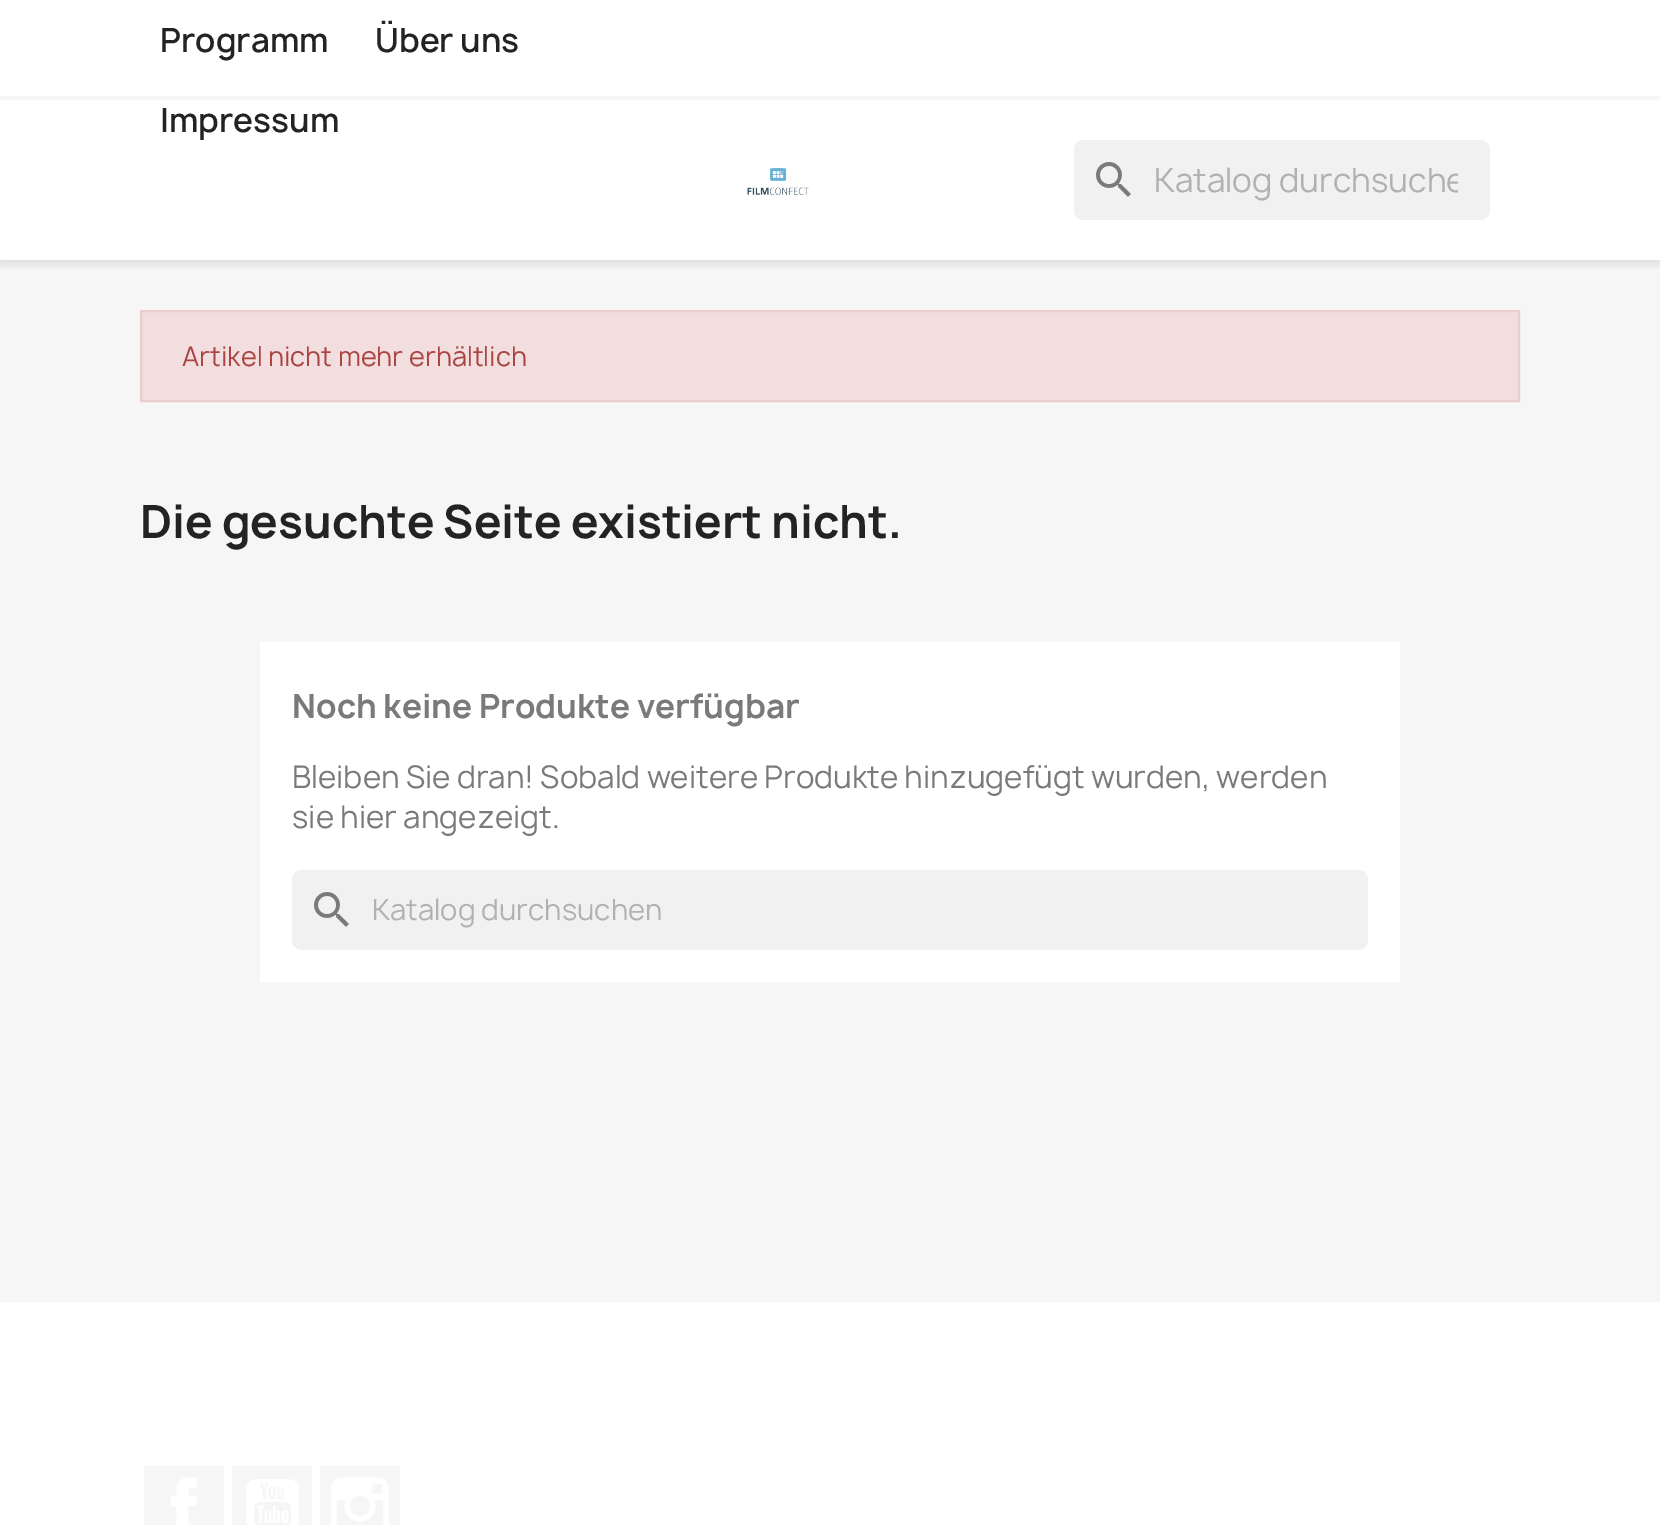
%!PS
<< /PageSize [1660 1525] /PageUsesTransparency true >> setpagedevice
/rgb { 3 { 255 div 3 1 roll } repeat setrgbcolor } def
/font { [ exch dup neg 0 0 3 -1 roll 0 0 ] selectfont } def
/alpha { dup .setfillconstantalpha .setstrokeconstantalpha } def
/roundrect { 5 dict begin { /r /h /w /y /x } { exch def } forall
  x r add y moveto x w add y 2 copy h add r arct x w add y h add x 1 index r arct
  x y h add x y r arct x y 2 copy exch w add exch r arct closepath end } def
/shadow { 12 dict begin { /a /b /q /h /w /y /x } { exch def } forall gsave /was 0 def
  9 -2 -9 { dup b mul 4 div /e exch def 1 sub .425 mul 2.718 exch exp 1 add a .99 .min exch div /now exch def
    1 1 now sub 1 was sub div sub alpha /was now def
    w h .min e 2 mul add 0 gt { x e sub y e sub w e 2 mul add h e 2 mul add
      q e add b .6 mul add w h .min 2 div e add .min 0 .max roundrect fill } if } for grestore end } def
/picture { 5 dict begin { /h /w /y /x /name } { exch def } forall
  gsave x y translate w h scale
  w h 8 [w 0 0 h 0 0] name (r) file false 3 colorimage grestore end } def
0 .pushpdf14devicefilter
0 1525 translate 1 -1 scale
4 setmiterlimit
255 255 255 rgb
0 0 1660 1525 rectfill
246 246 246 rgb
0 260 1660 1042 rectfill
gsave
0 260 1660 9 rectclip
0 0 0 rgb
0 4 1660 260 0 5 0.11 shadow
grestore
0 96 1660 4 rectfill
(img/1.rgb) 747 168 62 27 picture
241 241 241 rgb
1074 140 416 80 10 roundrect fill
(img/2.rgb) 1096 162 35 35 picture
242 222 222 rgb
141 311 moveto 1519 311 lineto 1519 401 lineto 141 401 lineto closepath gsave fill grestore
235 204 204 rgb
2 setlinewidth
stroke
255 255 255 rgb
260 642 1140 340 rectfill
241 241 241 rgb
292 870 1076 80 10 roundrect fill
(img/2.rgb) 314 892 35 35 picture
246 246 246 rgb
144 1466 80 59 rectfill
(img/3.rgb) 170 1477 27 48 picture
232 1466 80 59 rectfill
(img/4.rgb) 246 1479 53 46 picture
320 1466 80 59 rectfill
(img/5.rgb) 331 1477 58 48 picture
/Manrope-SemiBold 32 font
35 35 35 rgb
[
  [(Programm) 160 52]
  [(Über uns) 375 52]
  [(Impressum) 160 132]
] { aload pop moveto show } forall
gsave
1154 154 304 54 rectclip
/Manrope-Regular 32 font
177 177 177 rgb
1154 192 moveto (Katalog durchsuche) show
grestore
/Manrope-Regular 26 font
169 68 66 rgb
182 366 moveto (Artikel nicht mehr erhältlich) show
/Manrope-Bold 44 font
35 35 35 rgb
140 538 moveto (Die gesuchte Seite existiert nicht.) show
/Manrope-Bold 32 font
122 122 122 rgb
292 718 moveto (Noch keine Produkte verfügbar) show
/Manrope-Regular 30 font
292 788 moveto (Bleiben Sie dran! Sobald weitere Produkte hinzugefügt wurden, werden) show
292 828 moveto (sie hier angezeigt.) show
/Manrope-Regular 28 font
177 177 177 rgb
372 920 moveto (Katalog durchsuchen) show
.poppdf14devicefilter showpage
